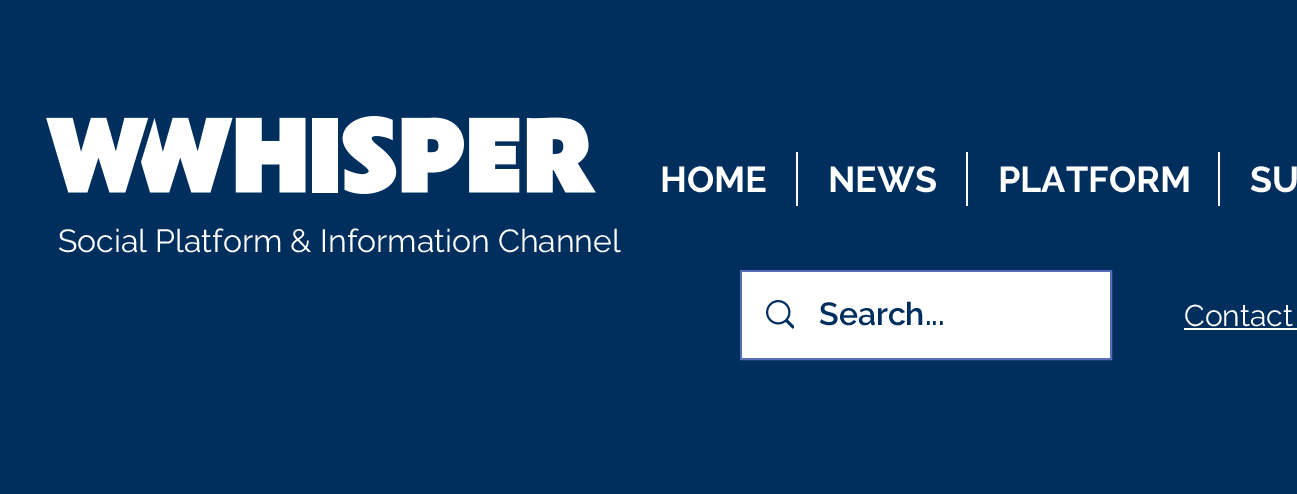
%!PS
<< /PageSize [1297 494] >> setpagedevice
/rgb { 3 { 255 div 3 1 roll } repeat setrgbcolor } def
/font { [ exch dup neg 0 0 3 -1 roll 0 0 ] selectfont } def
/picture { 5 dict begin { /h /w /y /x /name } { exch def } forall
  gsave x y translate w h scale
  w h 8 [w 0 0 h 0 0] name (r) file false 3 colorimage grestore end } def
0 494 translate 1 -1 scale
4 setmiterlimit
0 46 93 rgb
0 0 1297 494 rectfill
(img/1.rgb) 46 116 550 78 picture
[
  [796 152 2 54 255 255 255]
  [966 152 2 54 255 255 255]
  [1218 152 2 54 255 255 255]
] { aload pop rgb rectfill } forall
86 111 184 rgb
2 setlinewidth
741 271 370 88 rectstroke
255 255 255 rgb
742 272 368 86 rectfill
(img/2.rgb) 766 300 28 29 picture
1184 328 113 2 rectfill
/Raleway-Bold 36 font
[
  [(HOME) 660 192]
  [(NEWS) 828 192]
  [(PLATFORM) 998 192]
  [(SU) 1250 192]
] { aload pop moveto show } forall
/Raleway-Regular 32 font
58 252 moveto (Social Platform & Information Channel) show
/Raleway-SemiBold 32 font
0 46 93 rgb
819 325 moveto (Search...) show
/Raleway-Regular 30 font
255 255 255 rgb
1184 326 moveto (Contact) show
showpage
